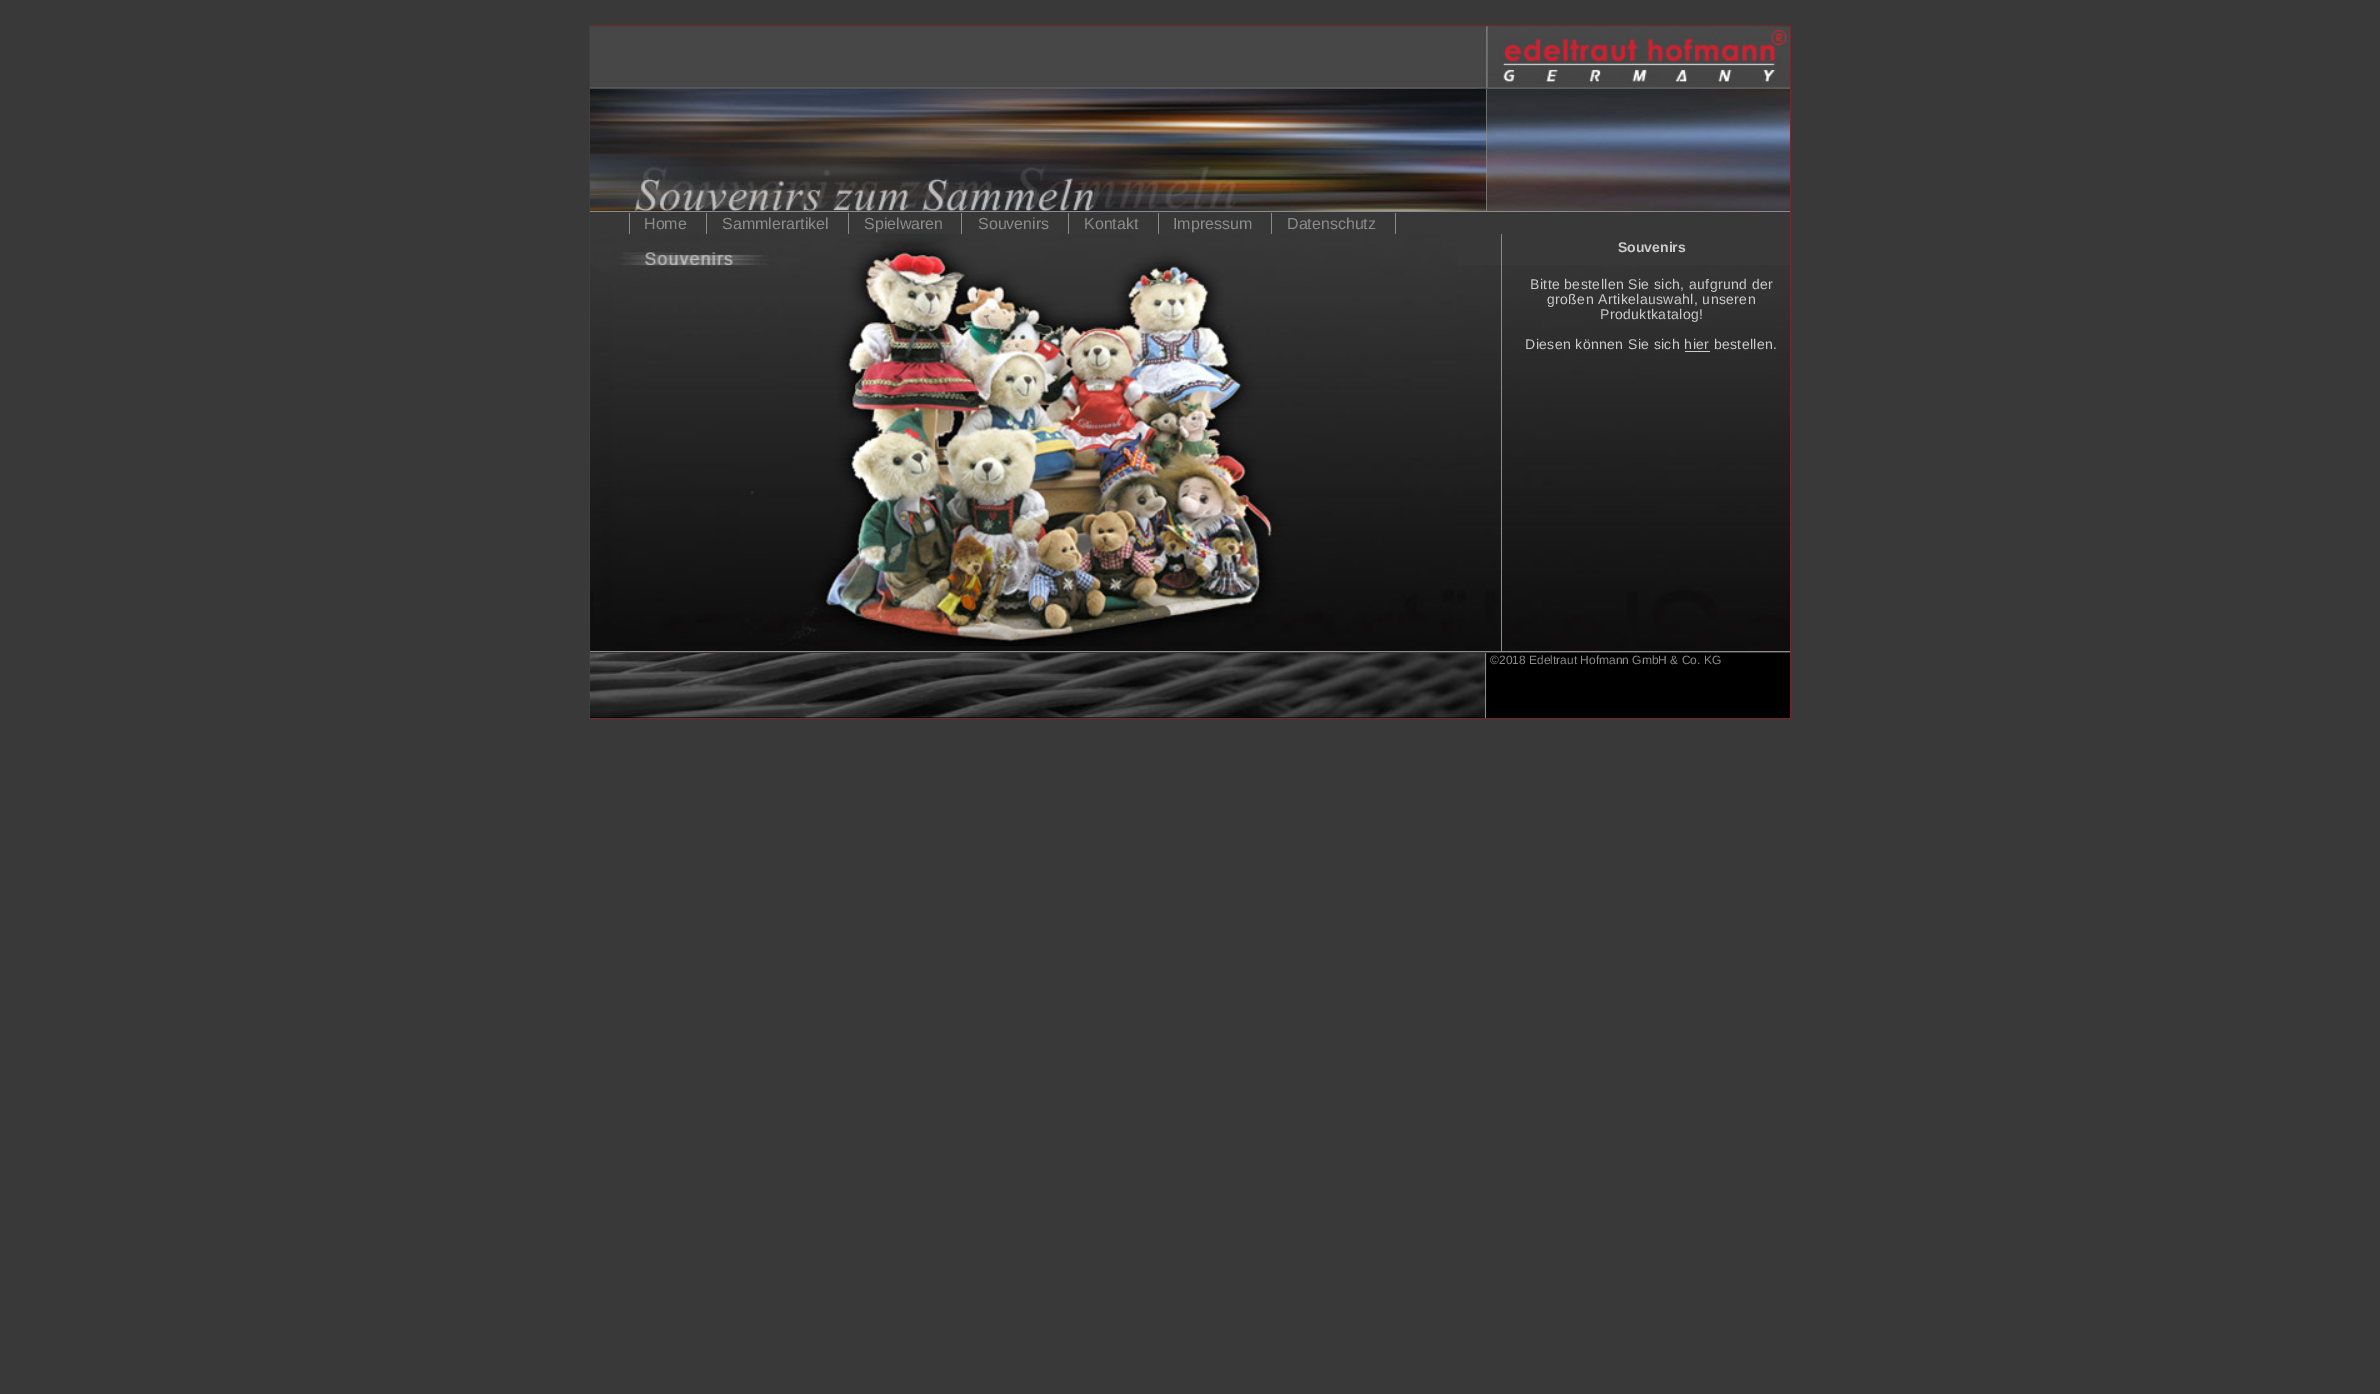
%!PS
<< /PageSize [2380 1394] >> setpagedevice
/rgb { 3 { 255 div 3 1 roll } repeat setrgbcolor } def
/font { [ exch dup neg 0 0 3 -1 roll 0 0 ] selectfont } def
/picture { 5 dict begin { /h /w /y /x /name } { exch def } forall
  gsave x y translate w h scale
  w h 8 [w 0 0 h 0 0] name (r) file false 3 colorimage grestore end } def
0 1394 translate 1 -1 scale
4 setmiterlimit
56 57 56 rgb
0 0 2380 1394 rectfill
0 0 0 rgb
589.5 25.5 moveto 1790.5 25.5 lineto 1790.5 718.5 lineto 589.5 718.5 lineto closepath gsave fill grestore
109 42 49 rgb
stroke
(img/1.rgb) 590 26 1200 63 picture
(img/2.rgb) 590 26 1200 62 picture
(img/3.rgb) 590 88 1200 123 picture
140 139 139 rgb
1486 89 1 122 rectfill
(img/4.rgb) 590 88 897 123 picture
[
  [590 212 1200 22 57 56 56]
  [590 211 1200 1 140 139 139]
  [629 213 1 22 140 139 139]
  [706 213 1 22 140 139 139]
  [848 213 1 22 140 139 139]
  [961 213 1 22 140 139 139]
  [1068 213 1 22 140 139 139]
  [1158 213 1 22 140 139 139]
  [1271 213 1 22 140 139 139]
  [1395 213 1 22 140 139 139]
  [590 234 1200 419 57 56 56]
] { aload pop rgb rectfill } forall
(img/5.rgb) 590 265 1200 386 picture
140 139 139 rgb
590 651 1200 1 rectfill
(img/6.rgb) 593 233 864 413 picture
1501 234 1 417 rectfill
204 204 204 rgb
1685 351 25 1 rectfill
(img/7.rgb) 590 653 897 65 picture
140 139 139 rgb
1485 653 1 65 rectfill
/LiberationSans-Regular 16 font
[
  [(Home) 644 229]
  [(Sammlerartikel) 722 229]
  [(Spielwaren) 864 229]
  [(Souvenirs) 978 229]
  [(Kontakt) 1084 229]
  [(Impressum) 1173 229]
  [(Datenschutz) 1287 229]
] { aload pop moveto show } forall
/LiberationSans-Bold 14 font
204 204 204 rgb
1618 252 moveto (Souvenirs) show
/LiberationSans-Regular 14 font
1530 289 moveto 0.4 0 (Bitte bestellen Sie sich, aufgrund der) ashow
1547 304 moveto 0.4 0 (großen Artikelauswahl, unseren) ashow
1600 319 moveto 0.4 0 (Produktkatalog!) ashow
1525 349 moveto 0.4 0 (Diesen können Sie sich hier bestellen.) ashow
/LiberationSans-Regular 12 font
140 139 139 rgb
1490 664 moveto (©2018 Edeltraut Hofmann GmbH & Co. KG) show
showpage
